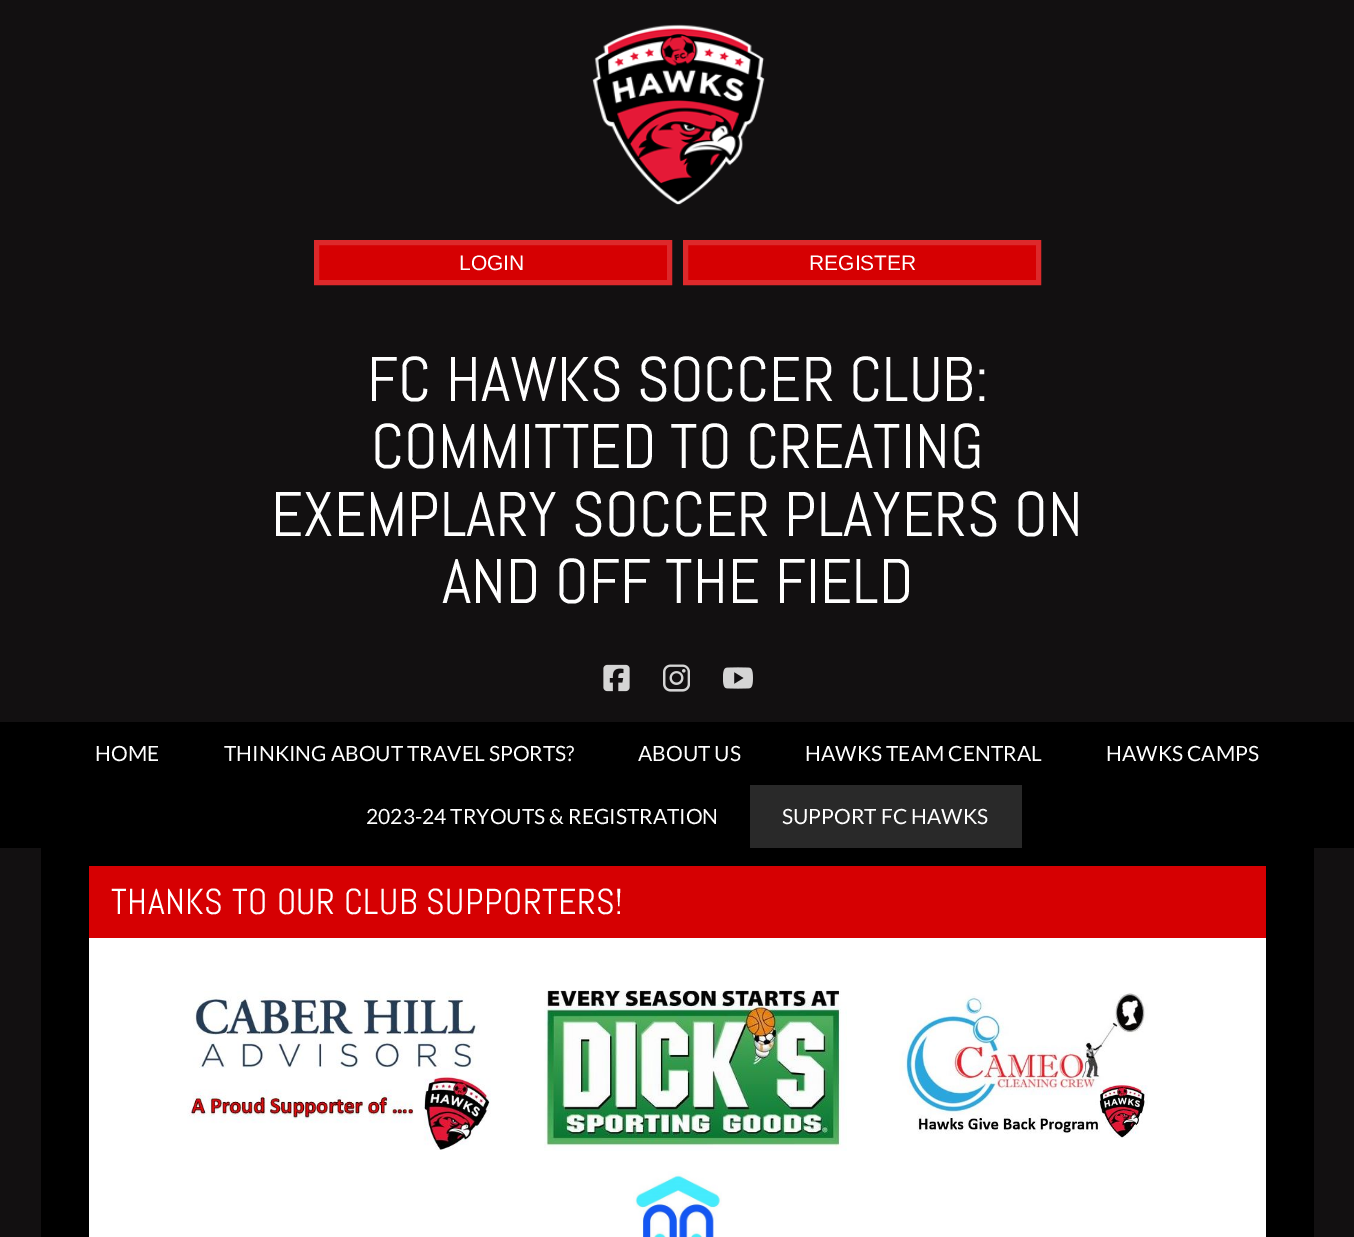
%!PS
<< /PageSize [1354 1237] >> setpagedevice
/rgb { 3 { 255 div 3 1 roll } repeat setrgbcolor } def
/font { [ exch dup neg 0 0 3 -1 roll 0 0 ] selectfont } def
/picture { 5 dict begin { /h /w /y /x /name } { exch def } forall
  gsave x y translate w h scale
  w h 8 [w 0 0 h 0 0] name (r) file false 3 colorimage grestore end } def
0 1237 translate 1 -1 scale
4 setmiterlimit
18 16 17 rgb
0 0 1354 1237 rectfill
(img/1.rgb) 592 24 173 181 picture
214 0 2 rgb
316.5 242.5 moveto 669.5 242.5 lineto 669.5 282.5 lineto 316.5 282.5 lineto closepath gsave fill grestore
221 41 43 rgb
5 setlinewidth
stroke
214 0 2 rgb
685.5 242.5 moveto 1038.5 242.5 lineto 1038.5 282.5 lineto 685.5 282.5 lineto closepath gsave fill grestore
221 41 43 rgb
stroke
(img/2.rgb) 603 664 27 28 picture
(img/3.rgb) 663 664 27 28 picture
(img/4.rgb) 723 667 30 22 picture
[
  [0 722 1354 126 0 0 0]
  [750 785 272 63 41 41 41]
  [41 848 1273 389 0 0 0]
  [89 866 1177 72 214 0 2]
  [89 938 1177 299 255 255 255]
] { aload pop rgb rectfill } forall
(img/5.rgb) 187 991 304 159 picture
(img/6.rgb) 544 990 303 161 picture
(img/7.rgb) 899 992 249 146 picture
(img/8.rgb) 633 1171 89 66 picture
/LiberationSans-Regular 21 font
459 270 moveto (LOGIN) show
809 270 moveto (REGISTER) show
/Abel-Regular 63 font
[
  [(FC HAWKS SOCCER CLUB:) 367 401]
  [(COMMITTED TO CREATING) 371 468]
  [(EXEMPLARY SOCCER PLAYERS ON) 271 536]
  [(AND OFF THE FIELD) 442 603]
] { aload pop moveto show } forall
/Lato-Regular 21 font
[
  [(HOME) 95 761]
  [(THINKING ABOUT TRAVEL SPORTS?) 224 761]
  [(ABOUT US) 638 761]
  [(HAWKS TEAM CENTRAL) 805 761]
  [(HAWKS CAMPS) 1106 761]
  [(2023-24 TRYOUTS & REGISTRATION) 366 824]
  [(SUPPORT FC HAWKS) 782 824]
] { aload pop moveto show } forall
/Abel-Regular 36 font
111 914 moveto 0.45 0 (THANKS TO OUR CLUB SUPPORTERS!) ashow
showpage
